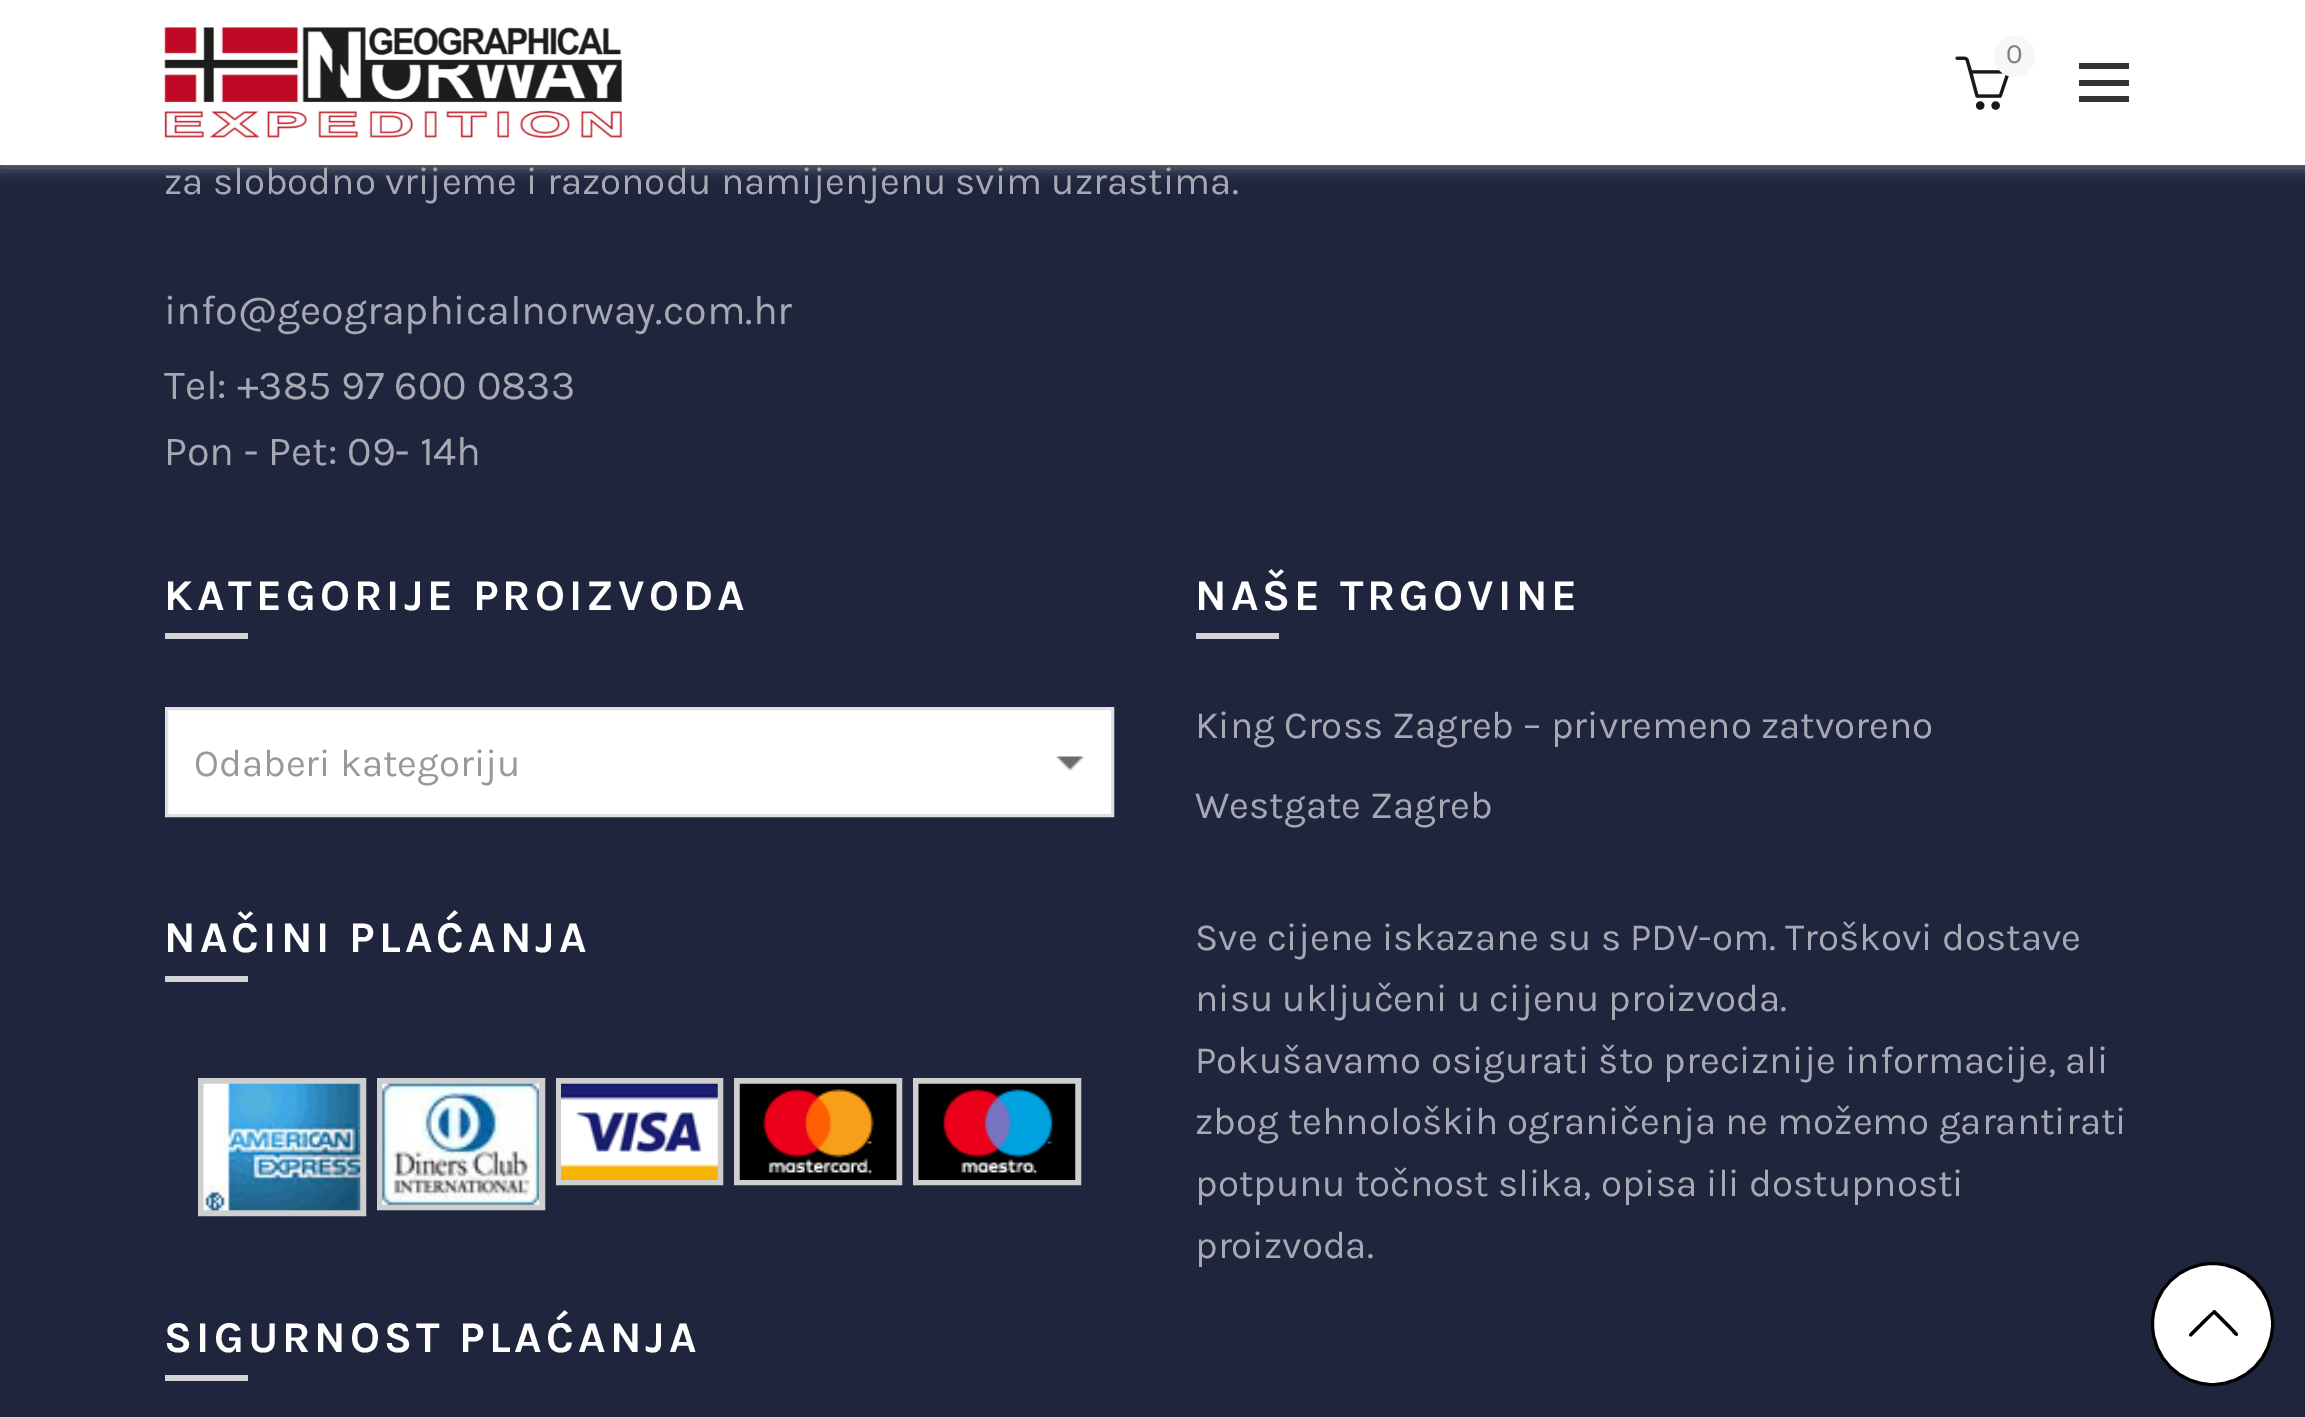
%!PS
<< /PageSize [2305 1417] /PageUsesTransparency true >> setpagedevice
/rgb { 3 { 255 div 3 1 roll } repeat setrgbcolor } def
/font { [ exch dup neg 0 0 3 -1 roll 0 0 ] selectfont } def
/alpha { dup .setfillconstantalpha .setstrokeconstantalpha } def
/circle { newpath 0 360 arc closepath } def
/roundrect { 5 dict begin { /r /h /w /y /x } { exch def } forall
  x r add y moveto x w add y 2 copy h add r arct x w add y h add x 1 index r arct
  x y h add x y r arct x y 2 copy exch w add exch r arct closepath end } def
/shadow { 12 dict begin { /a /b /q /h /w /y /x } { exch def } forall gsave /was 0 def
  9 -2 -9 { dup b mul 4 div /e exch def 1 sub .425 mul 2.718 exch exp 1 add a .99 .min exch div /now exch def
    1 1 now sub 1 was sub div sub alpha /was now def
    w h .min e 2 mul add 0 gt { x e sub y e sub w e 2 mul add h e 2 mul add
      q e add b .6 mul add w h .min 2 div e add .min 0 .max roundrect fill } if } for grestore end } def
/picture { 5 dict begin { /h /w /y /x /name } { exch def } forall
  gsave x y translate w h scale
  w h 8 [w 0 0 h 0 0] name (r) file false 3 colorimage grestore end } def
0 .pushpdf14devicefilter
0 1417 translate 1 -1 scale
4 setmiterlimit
32 37 62 rgb
0 0 2305 1417 rectfill
190 190 190 rgb
0 3 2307 165 0 7 0.5 shadow
255 255 255 rgb
0 0 2305 165 rectfill
(img/1.rgb) 164 27 458 111 picture
(img/2.rgb) 1955 56 54 54 picture
247 247 247 rgb
2014.5 56.5 20.5 circle fill
[
  [2079 80 50 6 51 51 51]
  [2079 63 50 6 51 51 51]
  [2079 96 50 6 51 51 51]
  [165 633 83 6 210 211 216]
] { aload pop rgb rectfill } forall
255 255 255 rgb
166.5 708.5 moveto 1112.5 708.5 lineto 1112.5 815.5 lineto 166.5 815.5 lineto closepath gsave fill grestore
224 224 224 rgb
3 setlinewidth
stroke
(img/3.rgb) 1056 756 28 15 picture
210 211 216 rgb
1196 633 83 6 rectfill
165 976 83 6 rectfill
207 207 207 rgb
6 setlinewidth
201 1081 162 132 rectstroke
(img/4.rgb) 203 1083 158 128 picture
380 1081 162 126 rectstroke
(img/5.rgb) 382 1083 157 122 picture
559 1081 161 101 rectstroke
(img/6.rgb) 561 1083 157 97 picture
737 1081 162 101 rectstroke
(img/7.rgb) 739 1083 158 97 picture
916 1081 162 101 rectstroke
(img/8.rgb) 918 1083 158 97 picture
210 211 216 rgb
165 1375 83 6 rectfill
255 255 255 rgb
2152.5 1263.5 120 121 60 roundrect gsave fill grestore
0 0 0 rgb
3 setlinewidth
stroke
2189 1335 moveto 2189 1336 2191 1337 2192 1336 curveto 2214 1314 lineto 2232 1332 lineto 2232 1332 2236 1338 2238 1335 curveto 2238 1334 lineto 2238 1333 2217 1312 2215 1310 curveto 2214 1310 lineto 2201 1322 lineto 2200 1324 2189 1333 2189 1335 curveto closepath fill
/Karla-Regular 28 font
126 126 126 rgb
2006 63 moveto (0) show
/Karla-Regular 38.5 font
166 168 178 rgb
164 194 moveto (za slobodno vrijeme i razonodu namijenjenu svim uzrastima.) show
/Karla-Regular 41.25 font
[
  [(info@geographicalnorway.com.hr) 164 324]
  [(Tel: +385 97 600 0833) 164 399]
  [(Pon - Pet: 09- 14h) 164 465]
] { aload pop moveto show } forall
/Karla-Bold 44 font
255 255 255 rgb
164 610 moveto 4.1 0 (KATEGORIJE PROIZVODA) ashow
/Karla-Regular 38.5 font
153 153 153 rgb
194 776 moveto (Odaberi kategoriju) show
/Karla-Bold 44 font
255 255 255 rgb
1195 610 moveto 4.1 0 (NAŠE TRGOVINE) ashow
/Karla-Regular 38.5 font
166 168 178 rgb
1195 738 moveto (King Cross Zagreb – privremeno zatvoreno) show
1195 818 moveto (Westgate Zagreb) show
/Karla-Bold 44 font
255 255 255 rgb
164 952 moveto 4.1 0 (NAČINI PLAĆANJA) ashow
164 1352 moveto 4.1 0 (SIGURNOST PLAĆANJA) ashow
/Karla-Regular 38.5 font
166 168 178 rgb
[
  [(Sve cijene iskazane su s PDV-om. Troškovi dostave) 1195 950]
  [(nisu uključeni u cijenu proizvoda.) 1195 1011]
  [(Pokušavamo osigurati što preciznije informacije, ali) 1195 1073]
  [(zbog tehnoloških ograničenja ne možemo garantirati) 1195 1134]
  [(potpunu točnost slika, opisa ili dostupnosti) 1195 1196]
  [(proizvoda.) 1195 1258]
] { aload pop moveto show } forall
.poppdf14devicefilter showpage
